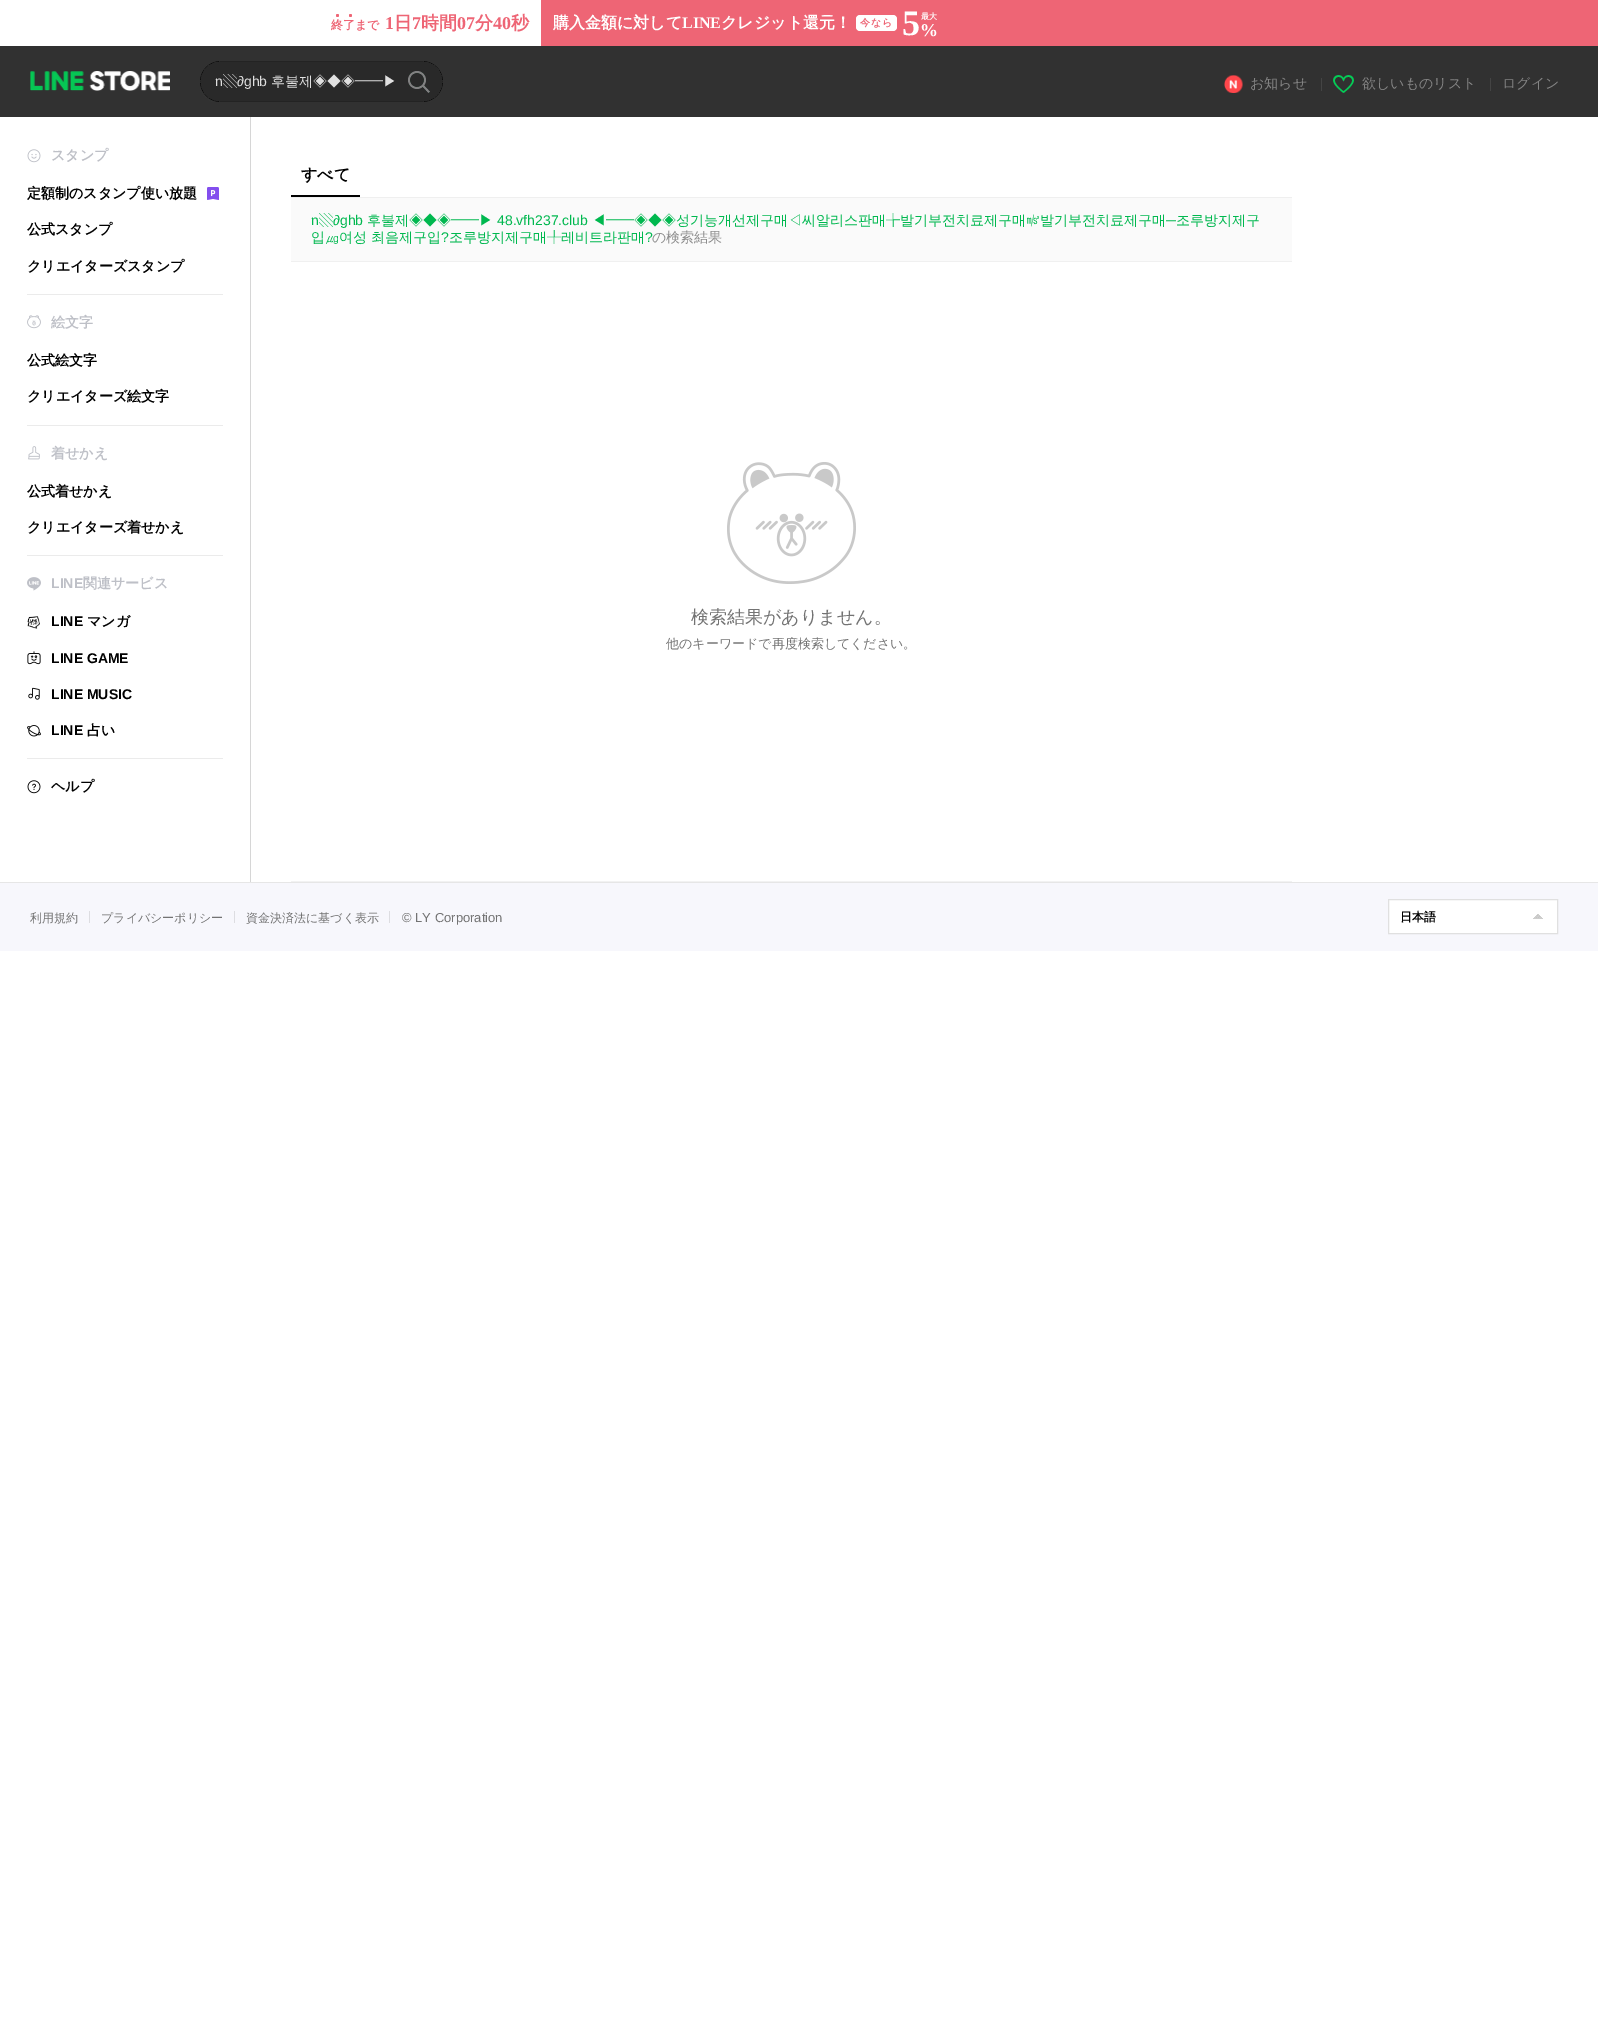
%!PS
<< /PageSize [1598 2042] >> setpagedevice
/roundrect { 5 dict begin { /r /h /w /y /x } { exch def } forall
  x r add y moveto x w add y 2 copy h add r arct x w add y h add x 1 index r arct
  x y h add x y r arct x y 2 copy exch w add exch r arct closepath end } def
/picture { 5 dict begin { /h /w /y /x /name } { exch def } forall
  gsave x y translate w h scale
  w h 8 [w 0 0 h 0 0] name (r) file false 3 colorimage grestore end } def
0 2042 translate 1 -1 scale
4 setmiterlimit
1 setgray
0 0 1598 2042 rectfill
0.933 0.396 0.459 setrgbcolor
newpath 337.5 15.5 1.5 0 360 arc closepath fill
newpath 350.5 15.5 1.5 0 360 arc closepath fill
/WenQuanYiZenHei-Bold [12 0 0 -12 0 0] selectfont
331 29 moveto (終了まで) show
/LiberationSerif-Bold [18 0 0 -18 0 0] selectfont
385 29 moveto (1) show
/WenQuanYiZenHei-Bold [18 0 0 -18 0 0] selectfont
394 29 moveto (日) show
/LiberationSerif-Bold [18 0 0 -18 0 0] selectfont
412 29 moveto (7) show
/WenQuanYiZenHei-Bold [18 0 0 -18 0 0] selectfont
421 29 moveto (時間) show
/LiberationSerif-Bold [18 0 0 -18 0 0] selectfont
457 29 moveto (07) show
/WenQuanYiZenHei-Bold [18 0 0 -18 0 0] selectfont
475 29 moveto (分) show
/LiberationSerif-Bold [18 0 0 -18 0 0] selectfont
493 29 moveto (40) show
/WenQuanYiZenHei-Bold [18 0 0 -18 0 0] selectfont
511 29 moveto (秒) show
541 0 1057 46 rectfill
/WenQuanYiZenHei-Bold [16 0 0 -16 0 0] selectfont
1 setgray
553 28 moveto (購入金額に対して) show
/LiberationSerif-Bold [16 0 0 -16 0 0] selectfont
682 28 moveto (LINE) show
/WenQuanYiZenHei-Bold [16 0 0 -16 0 0] selectfont
721 28 moveto (クレジット還元！) show
856 15 41 16 4 roundrect fill
/WenQuanYiZenHei-Bold [10 0 0 -10 0 0] selectfont
0.933 0.396 0.459 setrgbcolor
860 26 moveto 1 0 (今なら) ashow
/LiberationSerif-Bold [36 0 0 -36 0 0] selectfont
1 setgray
902 35 moveto (5) show
/WenQuanYiZenHei-Bold [8 0 0 -8 0 0] selectfont
921 19 moveto (最大) show
/LiberationSerif-Bold [18 0 0 -18 0 0] selectfont
920 36 moveto (%) show
0.192 setgray
0 46 1598 71 rectfill
(img1.rgb) 30 71 140 20 picture
(img2.rgb) 200 61 243 41 picture
/LiberationSans-Regular [14 0 0 -14 0 0] selectfont
0.878 setgray
215 86 moveto (n) show
/WenQuanYiZenHei-Medium [14 0 0 -14 0 0] selectfont
223 86 moveto (▧) show
/LiberationSans-Regular [14 0 0 -14 0 0] selectfont
237 86 moveto (∂ghb) show
/WenQuanYiZenHei-Medium [14 0 0 -14 0 0] selectfont
271 86 moveto (후불제◈◆◈━━▶) show
(img3.rgb) 408 71 22 22 picture
(img4.rgb) 1224 75 19 18 picture
0.518 setgray
1250 88 moveto (お知らせ) show
0.267 setgray
1321 78 1 13 rectfill
(img5.rgb) 1333 75 21 18 picture
0.518 setgray
1362 88 moveto (欲しいものリスト) show
0.267 setgray
1490 78 1 13 rectfill
0.518 setgray
1502 88 moveto (ログイン) show
(img6.rgb) 27 149 14 14 picture
/WenQuanYiZenHei-Bold [14 0 0 -14 0 0] selectfont
0.745 0.753 0.78 setrgbcolor
51 160 moveto (スタンプ) show
0 setgray
27 198 moveto (定額制のスタンプ使い放題) show
(img7.rgb) 207 187 12 13 picture
27 234 moveto (公式スタンプ) show
27 271 moveto (クリエイターズスタンプ) show
0.922 setgray
27 294 196 1 rectfill
(img8.rgb) 27 315 14 14 picture
0.745 0.753 0.78 setrgbcolor
51 327 moveto (絵文字) show
0 setgray
27 365 moveto (公式絵文字) show
27 401 moveto (クリエイターズ絵文字) show
0.922 setgray
27 425 196 1 rectfill
(img9.rgb) 28 446 12 14 picture
0.745 0.753 0.78 setrgbcolor
51 458 moveto (着せかえ) show
0 setgray
27 496 moveto (公式着せかえ) show
27 532 moveto (クリエイターズ着せかえ) show
0.922 setgray
27 555 196 1 rectfill
(img10.rgb) 27 577 14 14 picture
/LiberationSans-Bold [14 0 0 -14 0 0] selectfont
0.745 0.753 0.78 setrgbcolor
51 588 moveto (LINE) show
/WenQuanYiZenHei-Bold [14 0 0 -14 0 0] selectfont
83 588 moveto (関連サービス) show
(img11.rgb) 27 616 13 13 picture
/LiberationSans-Bold [14 0 0 -14 0 0] selectfont
0 setgray
51 626 moveto (LINE) show
/WenQuanYiZenHei-Bold [14 0 0 -14 0 0] selectfont
87 626 moveto (マンガ) show
(img12.rgb) 27 651 14 14 picture
/LiberationSans-Bold [14 0 0 -14 0 0] selectfont
51 663 moveto (LINE GAME) show
(img13.rgb) 28 687 12 13 picture
51 699 moveto (LINE MUSIC) show
(img14.rgb) 27 725 14 12 picture
51 735 moveto (LINE) show
/WenQuanYiZenHei-Bold [14 0 0 -14 0 0] selectfont
87 735 moveto (占い) show
0.922 setgray
27 758 196 1 rectfill
(img15.rgb) 27 780 14 14 picture
0 setgray
51 791 moveto (ヘルプ) show
0.839 setgray
250 117 1 765 rectfill
0.937 setgray
291 197 1001 1 rectfill
0 setgray
291 195 69 2 rectfill
/WenQuanYiZenHei-Bold [16 0 0 -16 0 0] selectfont
301 180 moveto (すべて) show
0.98 setgray
291 198 1001 63 rectfill
0.941 setgray
291 261 1001 1 rectfill
/LiberationSans-Regular [14 0 0 -14 0 0] selectfont
0 0.722 0.31 setrgbcolor
311 225 moveto (n) show
/WenQuanYiZenHei-Medium [14 0 0 -14 0 0] selectfont
319 225 moveto (▧) show
/LiberationSans-Regular [14 0 0 -14 0 0] selectfont
333 225 moveto (∂ghb) show
/WenQuanYiZenHei-Medium [14 0 0 -14 0 0] selectfont
367 225 moveto (후불제◈◆◈━━▶) show
/LiberationSans-Regular [14 0 0 -14 0 0] selectfont
497 225 moveto (48.vfh237.club) show
/WenQuanYiZenHei-Medium [14 0 0 -14 0 0] selectfont
592 225 moveto (◀━━◈◆◈성기능개선제구매◁씨알리스판매╆발기부전치료제구매㎨발기부전치료제구매) show
/LiberationSans-Regular [14 0 0 -14 0 0] selectfont
1166 225 moveto (─) show
/WenQuanYiZenHei-Medium [14 0 0 -14 0 0] selectfont
1176 225 moveto (조루방지제구) show
311 242 moveto (입㎍여성 최음제구입) show
/LiberationSans-Regular [14 0 0 -14 0 0] selectfont
441 242 moveto (?) show
/WenQuanYiZenHei-Medium [14 0 0 -14 0 0] selectfont
449 242 moveto (조루방지제구매╀레비트라판매) show
/LiberationSans-Regular [14 0 0 -14 0 0] selectfont
645 242 moveto (?) show
/WenQuanYiZenHei-Medium [14 0 0 -14 0 0] selectfont
0.549 setgray
652 242 moveto (の検索結果) show
(img16.rgb) 727 462 129 122 picture
0.949 setgray
291 881 1001 1 rectfill
/WenQuanYiZenHei-Medium [18 0 0 -18 0 0] selectfont
0.451 setgray
691 623 moveto (検索結果がありません。) show
/WenQuanYiZenHei-Medium [13 0 0 -13 0 0] selectfont
666 648 moveto (他のキーワードで再度検索してください。) show
0.969 0.969 0.988 setrgbcolor
0 883 1598 68 rectfill
0.902 setgray
0 882 1598 1 rectfill
/WenQuanYiZenHei-Medium [12 0 0 -12 0 0] selectfont
0.451 setgray
30 922 moveto (利用規約) show
0.867 0.867 0.882 setrgbcolor
89 911 1 12 rectfill
0.451 setgray
101 922 moveto (プライバシーポリシー) show
0.867 0.867 0.882 setrgbcolor
234 911 1 12 rectfill
0.451 setgray
246 922 moveto (資金決済法に基づく表示) show
0.867 0.867 0.882 setrgbcolor
389 911 1 12 rectfill
/LiberationSans-Regular [13 0 0 -13 0 0] selectfont
0.451 setgray
402 922 moveto (© LY Corporation) show
1 setgray
newpath 1388.5 899.5 moveto 1557.5 899.5 lineto 1557.5 933.5 lineto 1388.5 933.5 lineto closepath gsave fill grestore
0.878 setgray
stroke
/WenQuanYiZenHei-Bold [12 0 0 -12 0 0] selectfont
0 setgray
1400 921 moveto (日本語) show
(img17.rgb) 1533 914 10 5 picture
showpage
